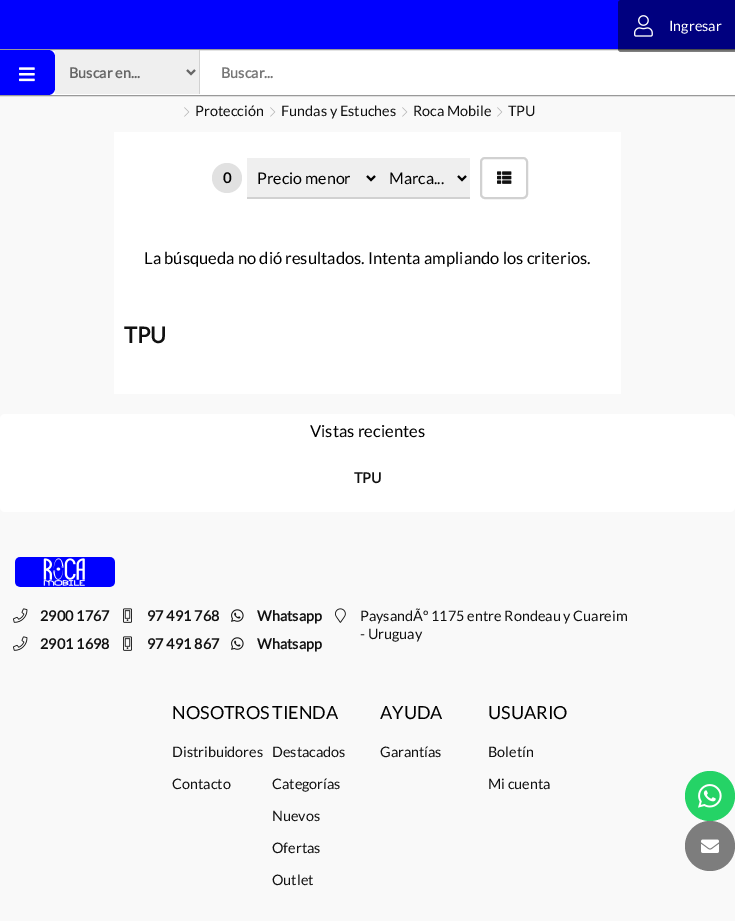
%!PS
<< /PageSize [735 921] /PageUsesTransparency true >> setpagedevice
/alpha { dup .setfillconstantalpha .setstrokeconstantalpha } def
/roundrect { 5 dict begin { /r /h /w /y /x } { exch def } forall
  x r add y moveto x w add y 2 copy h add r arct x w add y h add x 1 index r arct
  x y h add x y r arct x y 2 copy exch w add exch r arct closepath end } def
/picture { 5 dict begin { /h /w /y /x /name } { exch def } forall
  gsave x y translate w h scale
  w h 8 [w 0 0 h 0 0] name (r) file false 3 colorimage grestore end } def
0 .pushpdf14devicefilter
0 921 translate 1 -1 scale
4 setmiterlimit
0.976 setgray
0 0 735 921 rectfill
0 0 1 setrgbcolor
0 0 735 49 rectfill
1 setgray
48 50 687 45 rectfill
0.6 setgray
0.5 49.5 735 46 rectstroke
0.5 alpha
0 setgray
618 0 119 52 3 roundrect fill
1 alpha
(img1.rgb) 634 15 19 22 picture
/Lato-Regular [14.4 0 0 -14.4 0 0] selectfont
1 setgray
669 31 moveto (Ingresar) show
0 0 1 setrgbcolor
newpath 0 50 moveto 48 50 lineto 52 50 55 53 55 57 curveto 55 88 lineto 55 92 52 95 48 95 curveto 0 95 lineto closepath fill
(img2.rgb) 19 67 16 15 picture
0.937 setgray
55 50 144 44 rectfill
0.82 setgray
199 50 1 44 rectfill
0.4 setgray
2 setlinewidth
newpath 187 70 moveto 191 74 lineto 195 70 lineto stroke
/Lato-Bold [14.4 0 0 -14.4 0 0] selectfont
69 78 moveto (Buscar en...) show
0.467 setgray
221 78 moveto (Buscar...) show
(img3.rgb) 184 107 6 10 picture
/Lato-Regular [14.4 0 0 -14.4 0 0] selectfont
0.067 setgray
195 116 moveto (Protección) show
(img3.rgb) 270 107 6 10 picture
281 116 moveto (Fundas y Estuches) show
(img3.rgb) 402 107 6 10 picture
413 116 moveto (Roca Mobile) show
(img3.rgb) 497 107 6 10 picture
508 116 moveto (TPU) show
1 setgray
114 132 507 262 rectfill
0.882 setgray
newpath 227 178 15 0 360 arc closepath fill
/Lato-Bold [14.4 0 0 -14.4 0 0] selectfont
0 setgray
223 183 moveto (0) show
0.937 setgray
247 158 223 39 rectfill
0 setgray
newpath 367 176 moveto 371 180 lineto 375 176 lineto stroke
/Lato-Regular [16 0 0 -16 0 0] selectfont
257 184 moveto (Precio menor) show
0.82 setgray
247 197 223 2 rectfill
0 setgray
newpath 458 176 moveto 462 180 lineto 466 176 lineto stroke
389 184 moveto (Marca...) show
0.82 setgray
481 158 46 40 4 roundrect stroke
(img4.rgb) 497 171 15 13 picture
/Lato-Regular [16.55 0 0 -16.55 0 0] selectfont
0 setgray
144 264 moveto (La búsqueda no dió resultados. Intenta ampliando los criterios.) show
/Lato-Bold [22 0 0 -22 0 0] selectfont
0.067 setgray
124 343 moveto (TPU) show
1 setgray
0 414 735 98 5 roundrect fill
/Lato-Regular [16.55 0 0 -16.55 0 0] selectfont
0 setgray
310 437 moveto (Vistas recientes) show
/Lato-Bold [14.4 0 0 -14.4 0 0] selectfont
0.067 setgray
354 483 moveto (TPU) show
(img5.rgb) 15 557 100 30 picture
(img6.rgb) 13 608 15 15 picture
40 621 moveto (2900 1767) show
(img6.rgb) 13 636 15 15 picture
40 649 moveto (2901 1698) show
(img7.rgb) 123 608 9 15 picture
147 621 moveto (97 491 768) show
(img8.rgb) 231 609 13 13 picture
257 621 moveto (Whatsapp) show
(img7.rgb) 123 636 9 15 picture
147 649 moveto (97 491 867) show
(img8.rgb) 231 637 13 13 picture
257 649 moveto (Whatsapp) show
(img9.rgb) 335 608 11 15 picture
/Lato-Regular [14.4 0 0 -14.4 0 0] selectfont
360 621 moveto (PaysandÃº 1175 entre Rondeau y Cuareim) show
360 639 moveto (- Uruguay) show
/Lato-Regular [18 0 0 -18 0 0] selectfont
0 setgray
172 719 moveto (NOSOTROS) show
/Lato-Regular [14.4 0 0 -14.4 0 0] selectfont
0.067 setgray
172 757 moveto (Distribuidores) show
172 789 moveto (Contacto) show
/Lato-Regular [18 0 0 -18 0 0] selectfont
0 setgray
272 719 moveto (TIENDA) show
/Lato-Regular [14.4 0 0 -14.4 0 0] selectfont
0.067 setgray
272 757 moveto (Destacados) show
272 789 moveto (Categorías) show
272 821 moveto (Nuevos) show
272 853 moveto (Ofertas) show
272 885 moveto (Outlet) show
/Lato-Regular [18 0 0 -18 0 0] selectfont
0 setgray
380 719 moveto (AYUDA) show
/Lato-Regular [14.4 0 0 -14.4 0 0] selectfont
0.067 setgray
380 757 moveto (Garantías) show
/Lato-Regular [18 0 0 -18 0 0] selectfont
0 setgray
488 719 moveto (USUARIO) show
/Lato-Regular [14.4 0 0 -14.4 0 0] selectfont
0.067 setgray
488 757 moveto (Boletín) show
488 789 moveto (Mi cuenta) show
0.145 0.827 0.4 setrgbcolor
newpath 710 796 25 0 360 arc closepath fill
(img10.rgb) 698 784 24 24 picture
0.49 setgray
newpath 710 846 25 0 360 arc closepath fill
(img11.rgb) 701 839 18 14 picture
.poppdf14devicefilter showpage
